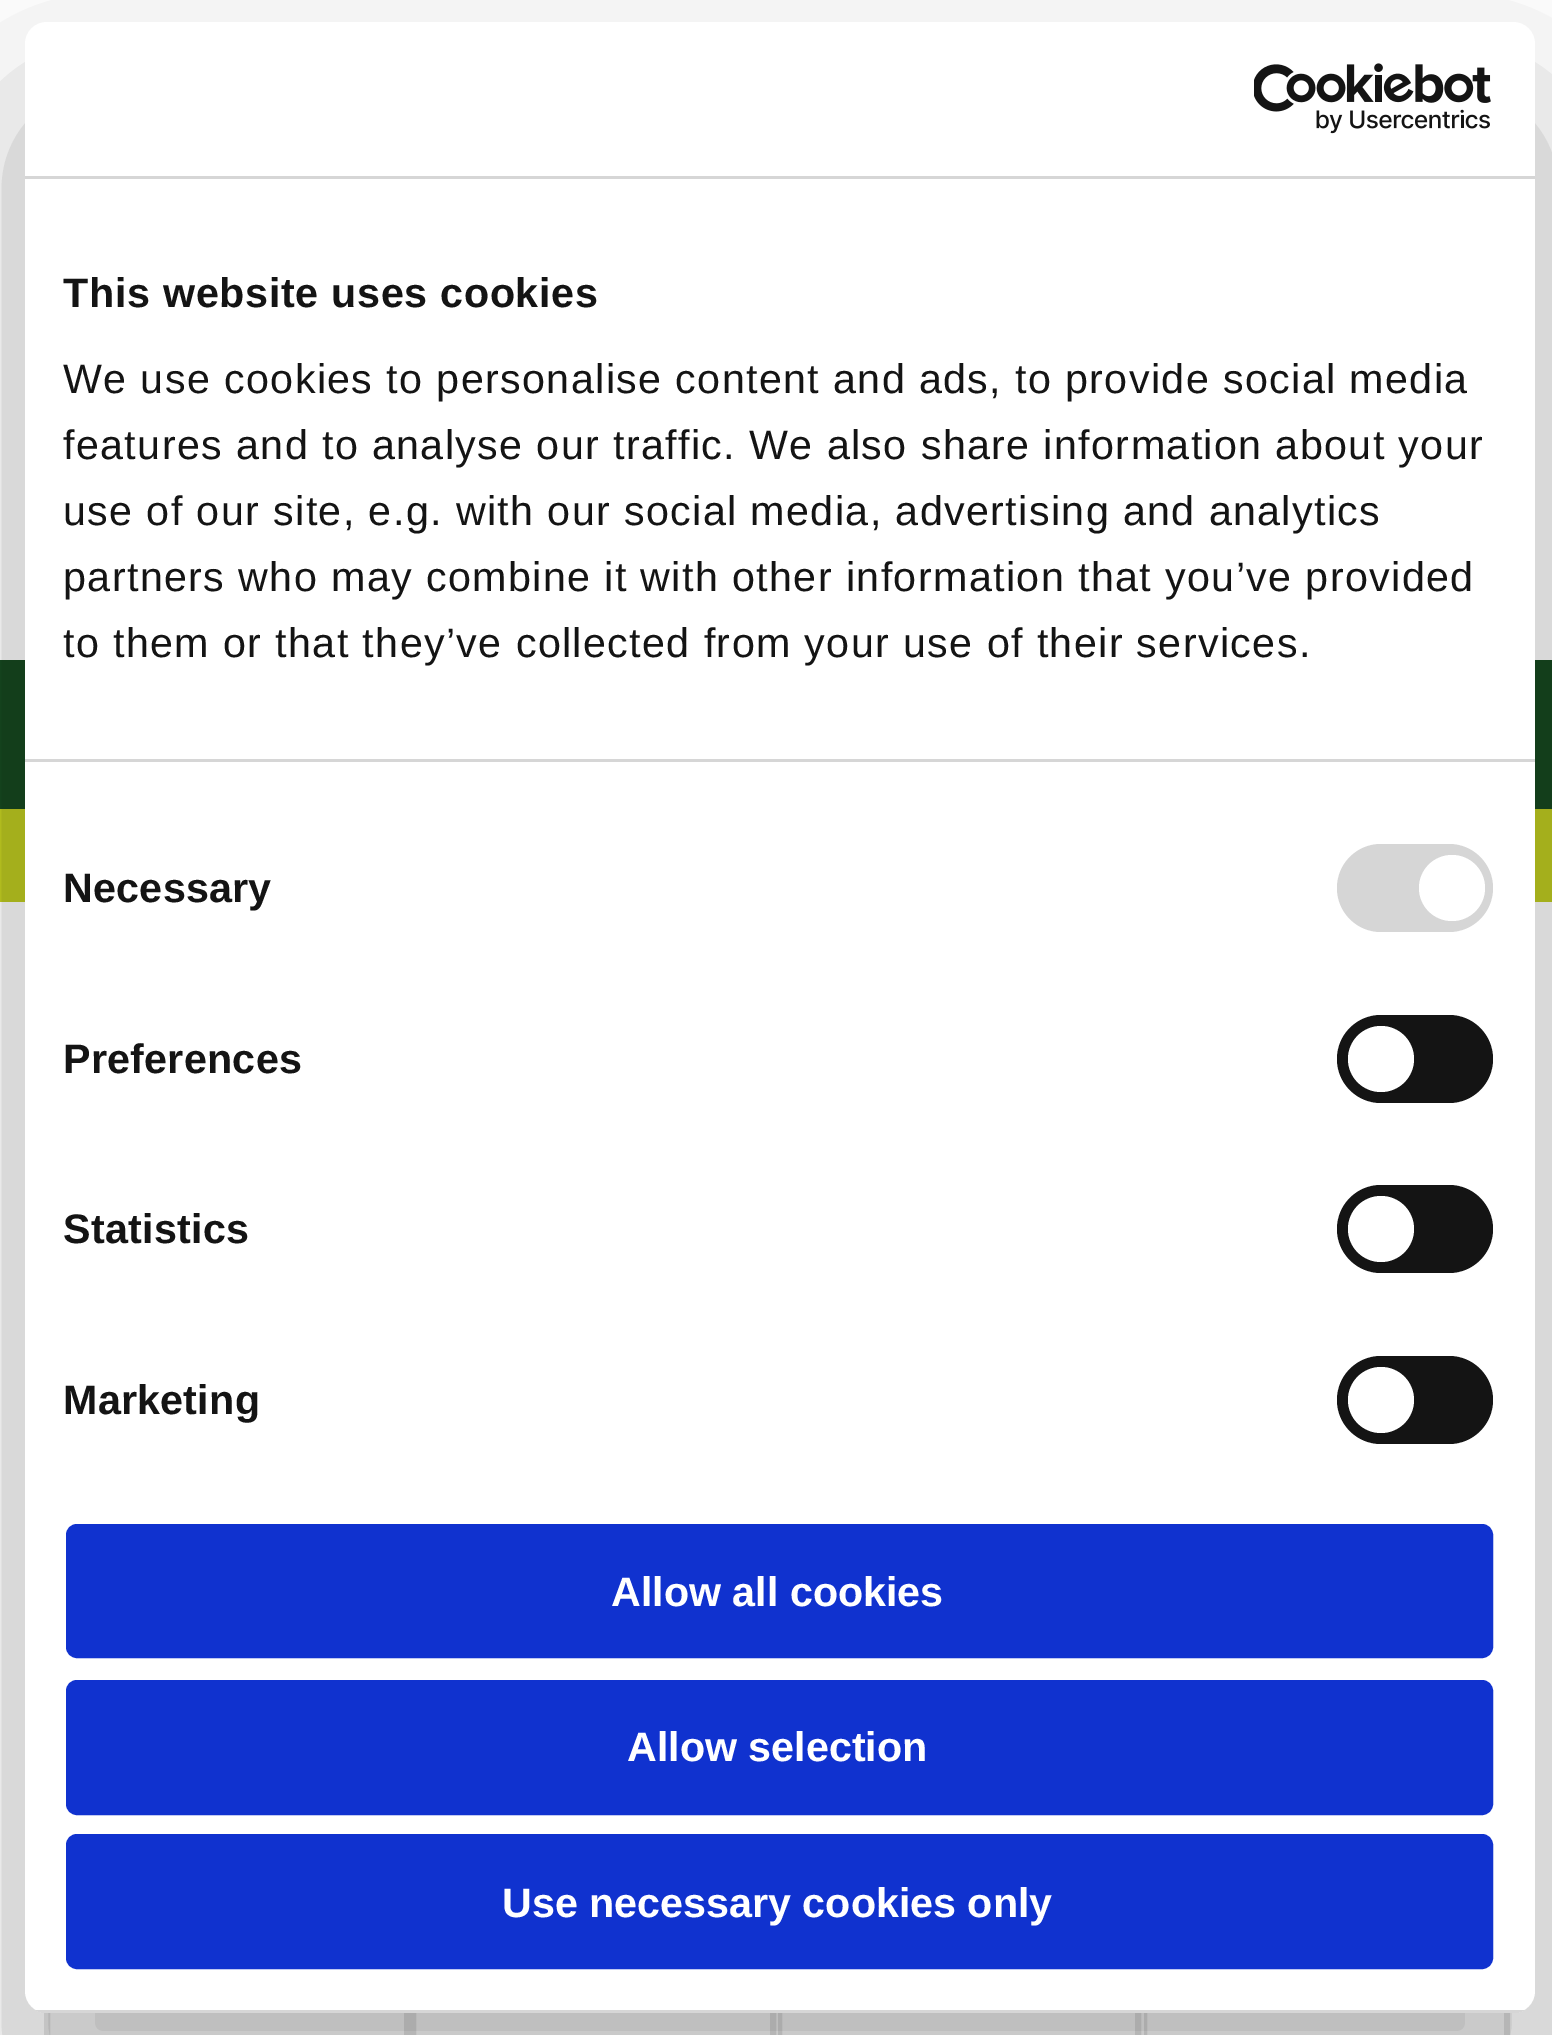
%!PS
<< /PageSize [1552 2035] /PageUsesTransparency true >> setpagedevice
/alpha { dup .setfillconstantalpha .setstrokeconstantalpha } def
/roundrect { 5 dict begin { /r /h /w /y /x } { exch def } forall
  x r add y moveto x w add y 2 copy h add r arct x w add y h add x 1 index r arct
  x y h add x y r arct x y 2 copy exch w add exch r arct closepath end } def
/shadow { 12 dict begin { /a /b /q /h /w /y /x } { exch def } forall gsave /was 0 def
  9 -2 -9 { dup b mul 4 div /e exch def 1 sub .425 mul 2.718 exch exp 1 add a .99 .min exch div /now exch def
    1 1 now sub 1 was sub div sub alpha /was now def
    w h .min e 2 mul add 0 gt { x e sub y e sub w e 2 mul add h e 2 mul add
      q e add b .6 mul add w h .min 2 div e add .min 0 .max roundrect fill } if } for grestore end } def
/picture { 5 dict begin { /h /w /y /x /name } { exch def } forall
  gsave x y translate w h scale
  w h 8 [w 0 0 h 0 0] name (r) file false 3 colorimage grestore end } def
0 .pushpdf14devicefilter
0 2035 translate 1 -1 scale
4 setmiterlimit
1 setgray
0 0 1552 2035 rectfill
0.082 0.286 0.122 setrgbcolor
0 660 1552 149 rectfill
0.757 0.804 0.129 setrgbcolor
0 809 1552 93 rectfill
0.902 setgray
6 setlinewidth
47 1862 360 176 rectstroke
413 1862 360 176 rectstroke
gsave
778 1862 366 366 rectclip
779 1862 359 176 rectstroke
grestore
gsave
1144 1862 366 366 rectclip
1144 1862 363 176 rectstroke
grestore
gsave
newpath 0 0 moveto 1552 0 lineto 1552 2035 lineto 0 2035 lineto closepath 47 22 moveto 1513 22 lineto 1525 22 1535 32 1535 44 curveto 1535 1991 lineto 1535 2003 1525 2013 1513 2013 curveto 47 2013 lineto 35 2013 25 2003 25 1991 curveto 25 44 lineto 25 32 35 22 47 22 curveto closepath eoclip newpath
0 setgray
25 110 1510 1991 22 93.5 0.3 shadow
grestore
1 setgray
25 22 1510 1991 22 roundrect fill
0.839 setgray
25 176 1510 3 rectfill
(img1.rgb) 1254 63 237 71 picture
25 759 1510 3 rectfill
/LiberationSans-Bold [41.25 0 0 -41.25 0 0] selectfont
0.078 setgray
63 307 moveto 0.7 0 (This website uses cookies) ashow
/LiberationSans-Regular [41.25 0 0 -41.25 0 0] selectfont
63 393 moveto 1.38 0 (We use cookies to personalise content and ads, to provide social media) ashow
63 459 moveto 1.38 0 (features and to analyse our traffic. We also share information about your) ashow
63 525 moveto 1.38 0 (use of our site, e.g. with our social media, advertising and analytics) ashow
63 591 moveto 1.38 0 (partners who may combine it with other information that you’ve provided) ashow
63 657 moveto 1.38 0 (to them or that they’ve collected from your use of their services.) ashow
/LiberationSans-Bold [41.25 0 0 -41.25 0 0] selectfont
63 902 moveto 0.25 0 (Necessary) ashow
0.839 setgray
1337 844 156 88 44 roundrect fill
1 setgray
newpath 1452 888 33 0 360 arc closepath fill
0.078 setgray
63 1073 moveto 0.25 0 (Preferences) ashow
1337 1015 156 88 44 roundrect fill
1 setgray
newpath 1381 1059 33 0 360 arc closepath fill
0.078 setgray
63 1243 moveto 0.25 0 (Statistics) ashow
1337 1185 156 88 44 roundrect fill
1 setgray
newpath 1381 1229 33 0 360 arc closepath fill
0.078 setgray
63 1414 moveto 0.25 0 (Marketing) ashow
1337 1356 156 88 44 roundrect fill
1 setgray
newpath 1381 1400 33 0 360 arc closepath fill
gsave
25 22 1510 1991 22 roundrect clip newpath
0.839 setgray
36 2010 1488 3 rectfill
grestore
0.063 0.196 0.812 setrgbcolor
69 1527 1421 128 8 roundrect gsave fill grestore
stroke
1 setgray
611 1606 moveto (Allow all cookies) show
0.063 0.196 0.812 setrgbcolor
69 1683 1421 129 8 roundrect gsave fill grestore
stroke
1 setgray
627 1761 moveto (Allow selection) show
0.063 0.196 0.812 setrgbcolor
69 1837 1421 129 8 roundrect gsave fill grestore
stroke
1 setgray
502 1917 moveto (Use necessary cookies only) show
.poppdf14devicefilter showpage
